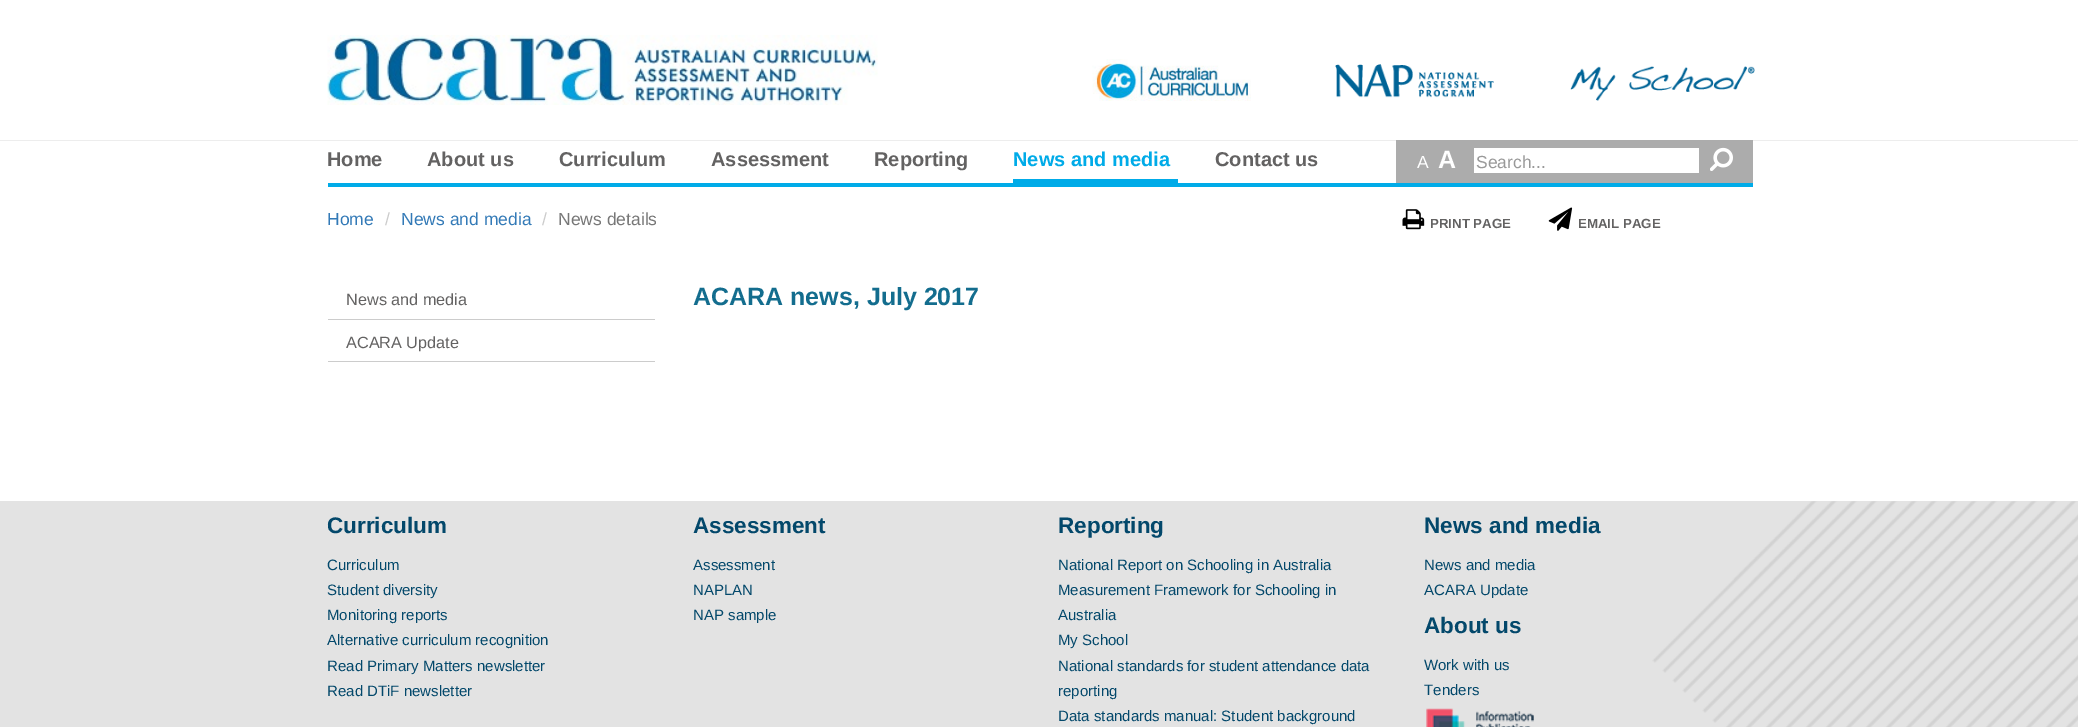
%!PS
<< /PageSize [2078 727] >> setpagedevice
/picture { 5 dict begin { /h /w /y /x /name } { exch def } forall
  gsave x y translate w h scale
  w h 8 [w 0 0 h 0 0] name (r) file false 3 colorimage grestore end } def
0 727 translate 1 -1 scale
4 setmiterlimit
1 setgray
0 0 2078 727 rectfill
(img1.rgb) 327 35 551 70 picture
(img2.rgb) 1092 59 159 42 picture
(img3.rgb) 1335 64 159 34 picture
(img4.rgb) 1570 66 185 35 picture
0.929 setgray
0 140 2078 1 rectfill
0 0.671 0.91 setrgbcolor
328 183 1425 4 rectfill
/LiberationSans-Bold [20 0 0 -20 0 0] selectfont
0.388 0.384 0.384 setrgbcolor
327 166 moveto (Home) show
427 166 moveto (About us) show
559 166 moveto (Curriculum) show
711 166 moveto (Assessment) show
874 166 moveto (Reporting) show
0 0.671 0.91 setrgbcolor
1013 179 165 4 rectfill
1013 166 moveto (News and media) show
0.388 0.384 0.384 setrgbcolor
1215 166 moveto (Contact us) show
0.675 setgray
1396 140 357 43 rectfill
/LiberationSans-Regular [17.5 0 0 -17.5 0 0] selectfont
1 setgray
1417 168 moveto (A) show
/LiberationSans-Bold [25 0 0 -25 0 0] selectfont
1438 168 moveto (A) show
1474 148 225 25 rectfill
/LiberationSans-Regular [17.5 0 0 -17.5 0 0] selectfont
0.6 setgray
1476 168 moveto (Search...) show
(img5.rgb) 1710 147 23 24 picture
0.2 0.478 0.718 setrgbcolor
327 225 moveto (Home) show
0.8 setgray
385 225 moveto (/) show
0.2 0.478 0.718 setrgbcolor
401 225 moveto (News and media) show
0.8 setgray
542 225 moveto (/) show
0.467 setgray
558 225 moveto (News details) show
(img6.rgb) 1402 209 23 21 picture
/LiberationSans-Bold [13.25 0 0 -13.25 0 0] selectfont
0.388 0.384 0.384 setrgbcolor
1430 228 moveto (PRINT PAGE) show
(img7.rgb) 1548 207 25 24 picture
1578 228 moveto (EMAIL PAGE) show
0.8 setgray
328 319 327 1 rectfill
/LiberationSans-Regular [16.25 0 0 -16.25 0 0] selectfont
0.388 0.384 0.384 setrgbcolor
346 305 moveto (News and media) show
0.8 setgray
328 361 327 1 rectfill
0.388 0.384 0.384 setrgbcolor
346 348 moveto (ACARA Update) show
/LiberationSans-Bold [25 0 0 -25 0 0] selectfont
0.075 0.427 0.557 setrgbcolor
693 305 moveto (ACARA news, July 2017) show
0.89 setgray
0 501 2078 226 rectfill
(img8.rgb) 1652 501 426 226 picture
/LiberationSans-Bold [22.5 0 0 -22.5 0 0] selectfont
0.012 0.282 0.42 setrgbcolor
327 533 moveto (Curriculum) show
/LiberationSans-Regular [15 0 0 -15 0 0] selectfont
327 570 moveto (Curriculum) show
327 595 moveto (Student diversity) show
327 620 moveto (Monitoring reports) show
327 645 moveto (Alternative curriculum recognition) show
327 671 moveto (Read Primary Matters newsletter) show
327 696 moveto (Read DTiF newsletter) show
/LiberationSans-Bold [22.5 0 0 -22.5 0 0] selectfont
693 533 moveto (Assessment) show
/LiberationSans-Regular [15 0 0 -15 0 0] selectfont
693 570 moveto (Assessment) show
693 595 moveto (NAPLAN) show
693 620 moveto (NAP sample) show
/LiberationSans-Bold [22.5 0 0 -22.5 0 0] selectfont
1058 533 moveto (Reporting) show
/LiberationSans-Regular [15 0 0 -15 0 0] selectfont
1058 570 moveto (National Report on Schooling in Australia) show
1058 595 moveto (Measurement Framework for Schooling in) show
1058 620 moveto (Australia) show
1058 645 moveto (My School) show
1058 671 moveto (National standards for student attendance data) show
1058 696 moveto (reporting) show
1058 721 moveto (Data standards manual: Student background) show
/LiberationSans-Bold [22.5 0 0 -22.5 0 0] selectfont
1424 533 moveto (News and media) show
/LiberationSans-Regular [15 0 0 -15 0 0] selectfont
1424 570 moveto (News and media) show
1424 595 moveto (ACARA Update) show
/LiberationSans-Bold [22.5 0 0 -22.5 0 0] selectfont
1424 633 moveto (About us) show
/LiberationSans-Regular [15 0 0 -15 0 0] selectfont
1424 670 moveto (Work with us) show
1424 695 moveto (Tenders) show
(img9.rgb) 1426 708 108 19 picture
showpage
